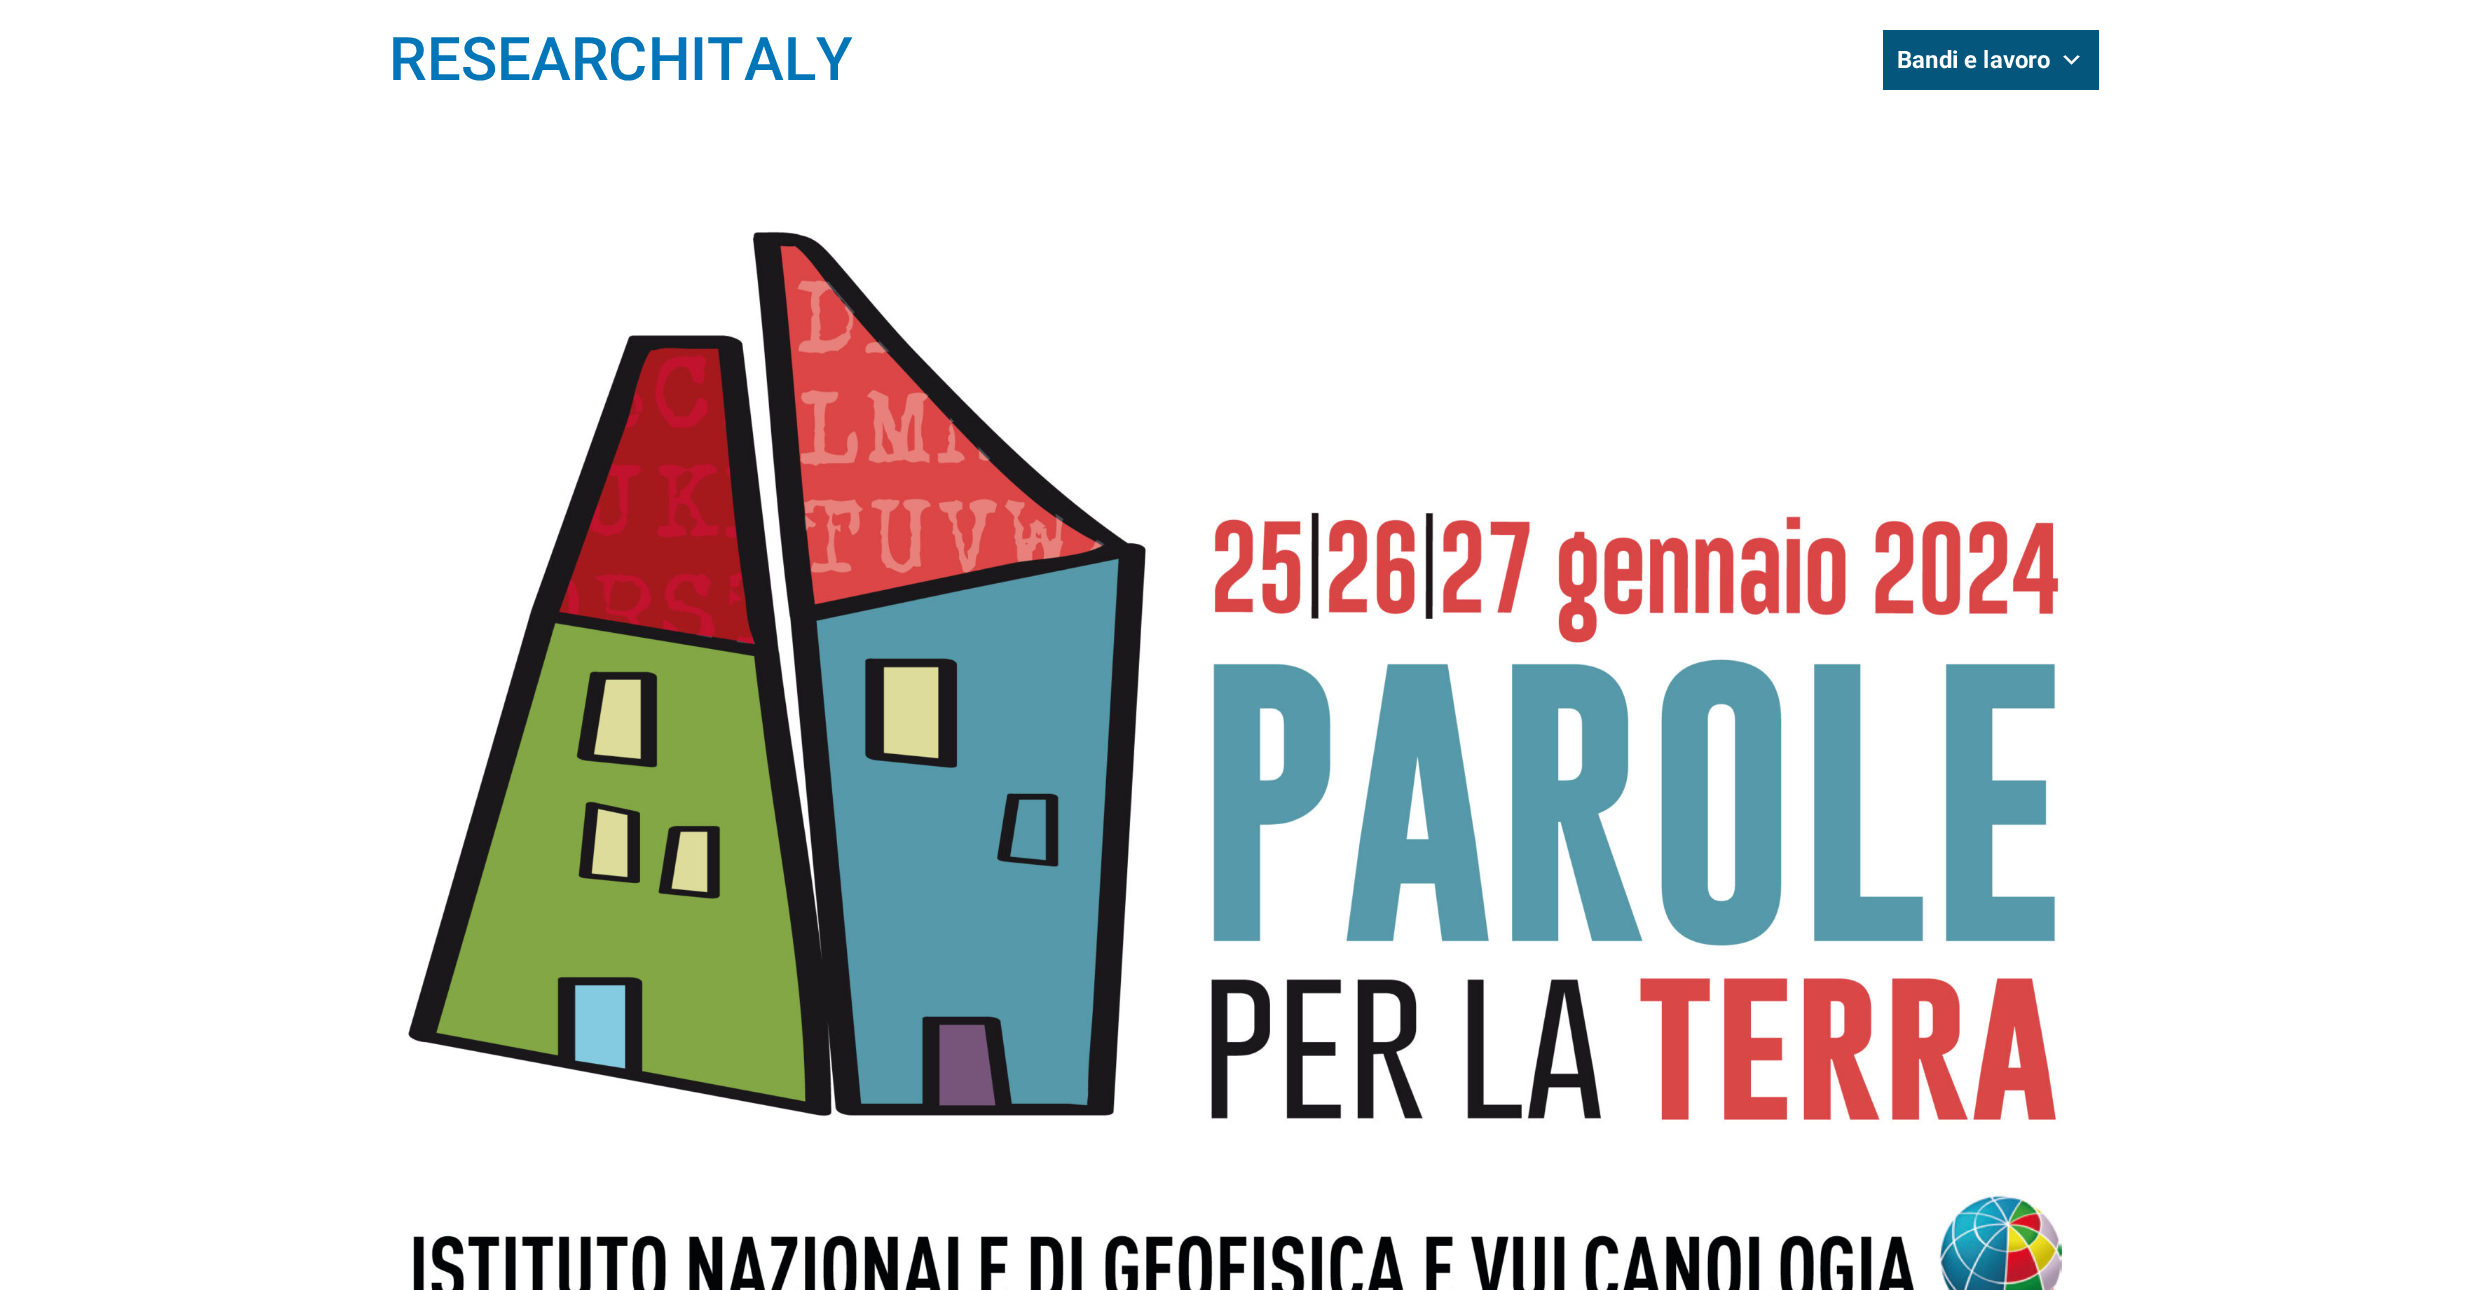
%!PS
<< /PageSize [2486 1290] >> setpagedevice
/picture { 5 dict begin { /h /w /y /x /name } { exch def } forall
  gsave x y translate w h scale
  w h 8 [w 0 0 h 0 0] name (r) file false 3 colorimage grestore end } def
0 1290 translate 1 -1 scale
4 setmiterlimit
1 setgray
0 0 2486 1290 rectfill
/Roboto-Medium [60 0 0 -60 0 0] selectfont
0 0.463 0.722 setrgbcolor
389 80 moveto (RESEARCHITALY) show
0.02 0.337 0.486 setrgbcolor
1883 30 216 60 rectfill
/Roboto-Bold [24 0 0 -24 0 0] selectfont
1 setgray
1897 68 moveto (Bandi e lavoro) show
(img1.rgb) 2063 55 17 10 picture
(img2.rgb) 408 231 1654 1059 picture
showpage
